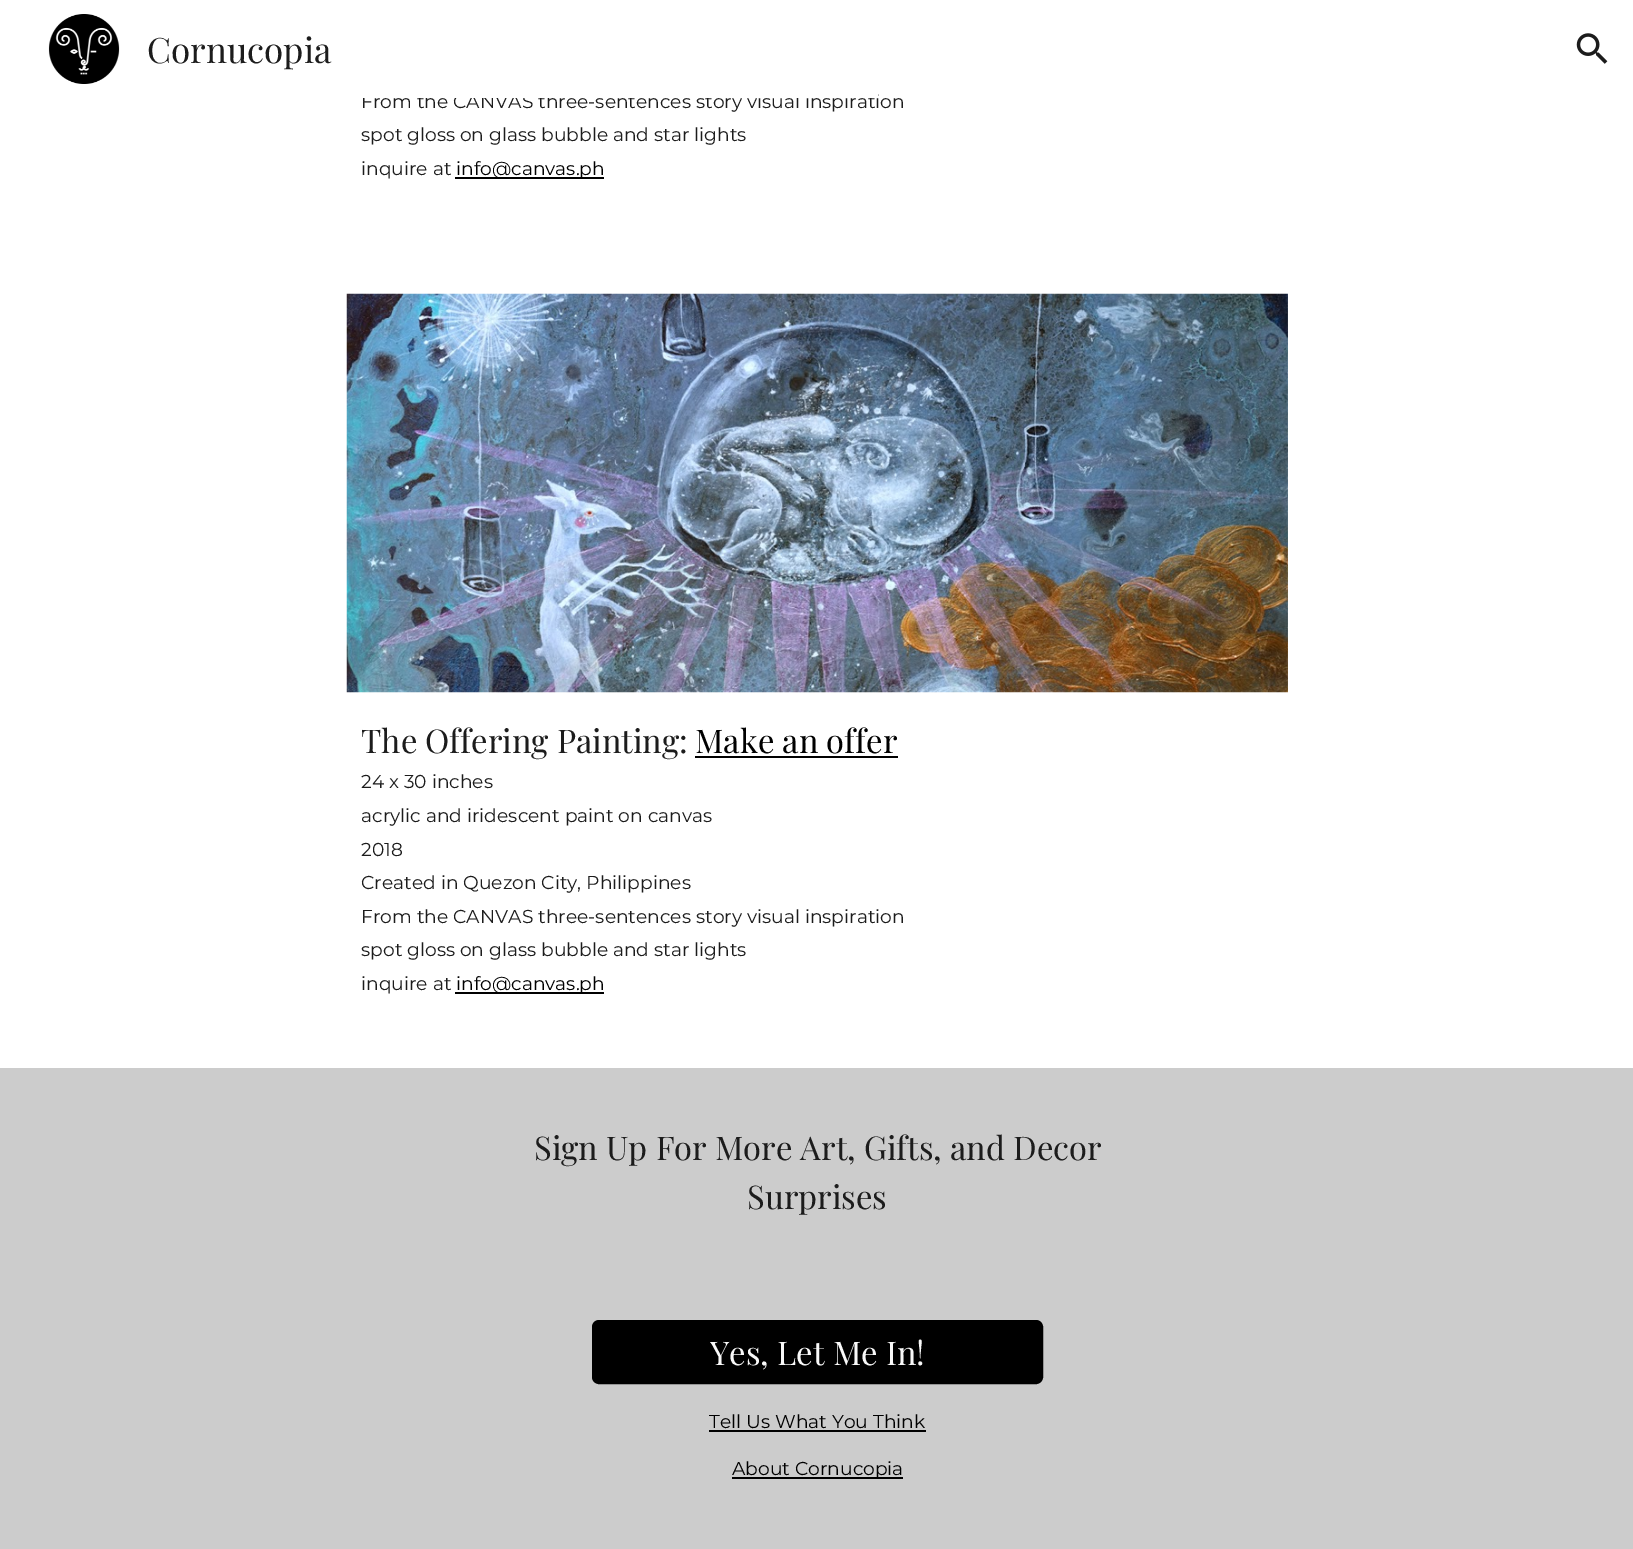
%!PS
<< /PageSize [1633 1549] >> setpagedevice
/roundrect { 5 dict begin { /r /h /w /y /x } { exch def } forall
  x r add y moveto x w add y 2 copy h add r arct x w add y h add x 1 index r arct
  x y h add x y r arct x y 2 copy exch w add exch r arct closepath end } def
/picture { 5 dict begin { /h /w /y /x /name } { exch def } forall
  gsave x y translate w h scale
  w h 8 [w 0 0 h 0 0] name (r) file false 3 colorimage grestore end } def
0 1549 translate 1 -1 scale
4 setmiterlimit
1 setgray
0 0 1633 1549 rectfill
(img1.rgb) 48 14 72 70 picture
/PlayfairDisplay-Regular [35 0 0 -35 0 0] selectfont
0.11 setgray
147 63 moveto (Cornucopia) show
(img2.rgb) 1576 33 32 31 picture
/Montserrat-Regular [18.7 0 0 -18.7 0 0] selectfont
361 108 moveto (From the CANVAS three-sentences story visual inspiration) show
1 setgray
362 94 516 4 rectfill
0.11 setgray
361 141 moveto (spot gloss on glass bubble and star lights) show
361 175 moveto (inquire at) show
0 setgray
455 177 149 2 rectfill
456 175 moveto (info@canvas.ph) show
(img3.rgb) 346 293 942 400 picture
/PlayfairDisplay-Regular [32.7 0 0 -32.7 0 0] selectfont
0.11 setgray
361 753 moveto (The Offering Painting:) show
0 setgray
695 753 moveto (Make an offer) show
695 756 203 2 rectfill
/Montserrat-Regular [18.7 0 0 -18.7 0 0] selectfont
0.11 setgray
361 788 moveto (24 x 30 inches) show
361 822 moveto (acrylic and iridescent paint on canvas) show
361 856 moveto (2018) show
361 889 moveto (Created in Quezon City, Philippines) show
361 923 moveto (From the CANVAS three-sentences story visual inspiration) show
361 956 moveto (spot gloss on glass bubble and star lights) show
361 990 moveto (inquire at) show
0 setgray
455 992 149 2 rectfill
456 990 moveto (info@canvas.ph) show
0.8 setgray
0 1068 1633 481 rectfill
/PlayfairDisplay-Regular [32.7 0 0 -32.7 0 0] selectfont
0.11 setgray
534 1160 moveto (Sign Up For More Art, Gifts, and Decor) show
747 1209 moveto (Surprises) show
0 setgray
593 1321 449 62 6 roundrect gsave fill grestore
2 setlinewidth
stroke
0.976 setgray
710 1365 moveto (Yes, Let Me In!) show
/Montserrat-Regular [18.7 0 0 -18.7 0 0] selectfont
0 setgray
709 1428 moveto (Tell Us What You Think) show
709 1430 217 2 rectfill
732 1477 171 2 rectfill
732 1475 moveto (About Cornucopia) show
showpage
